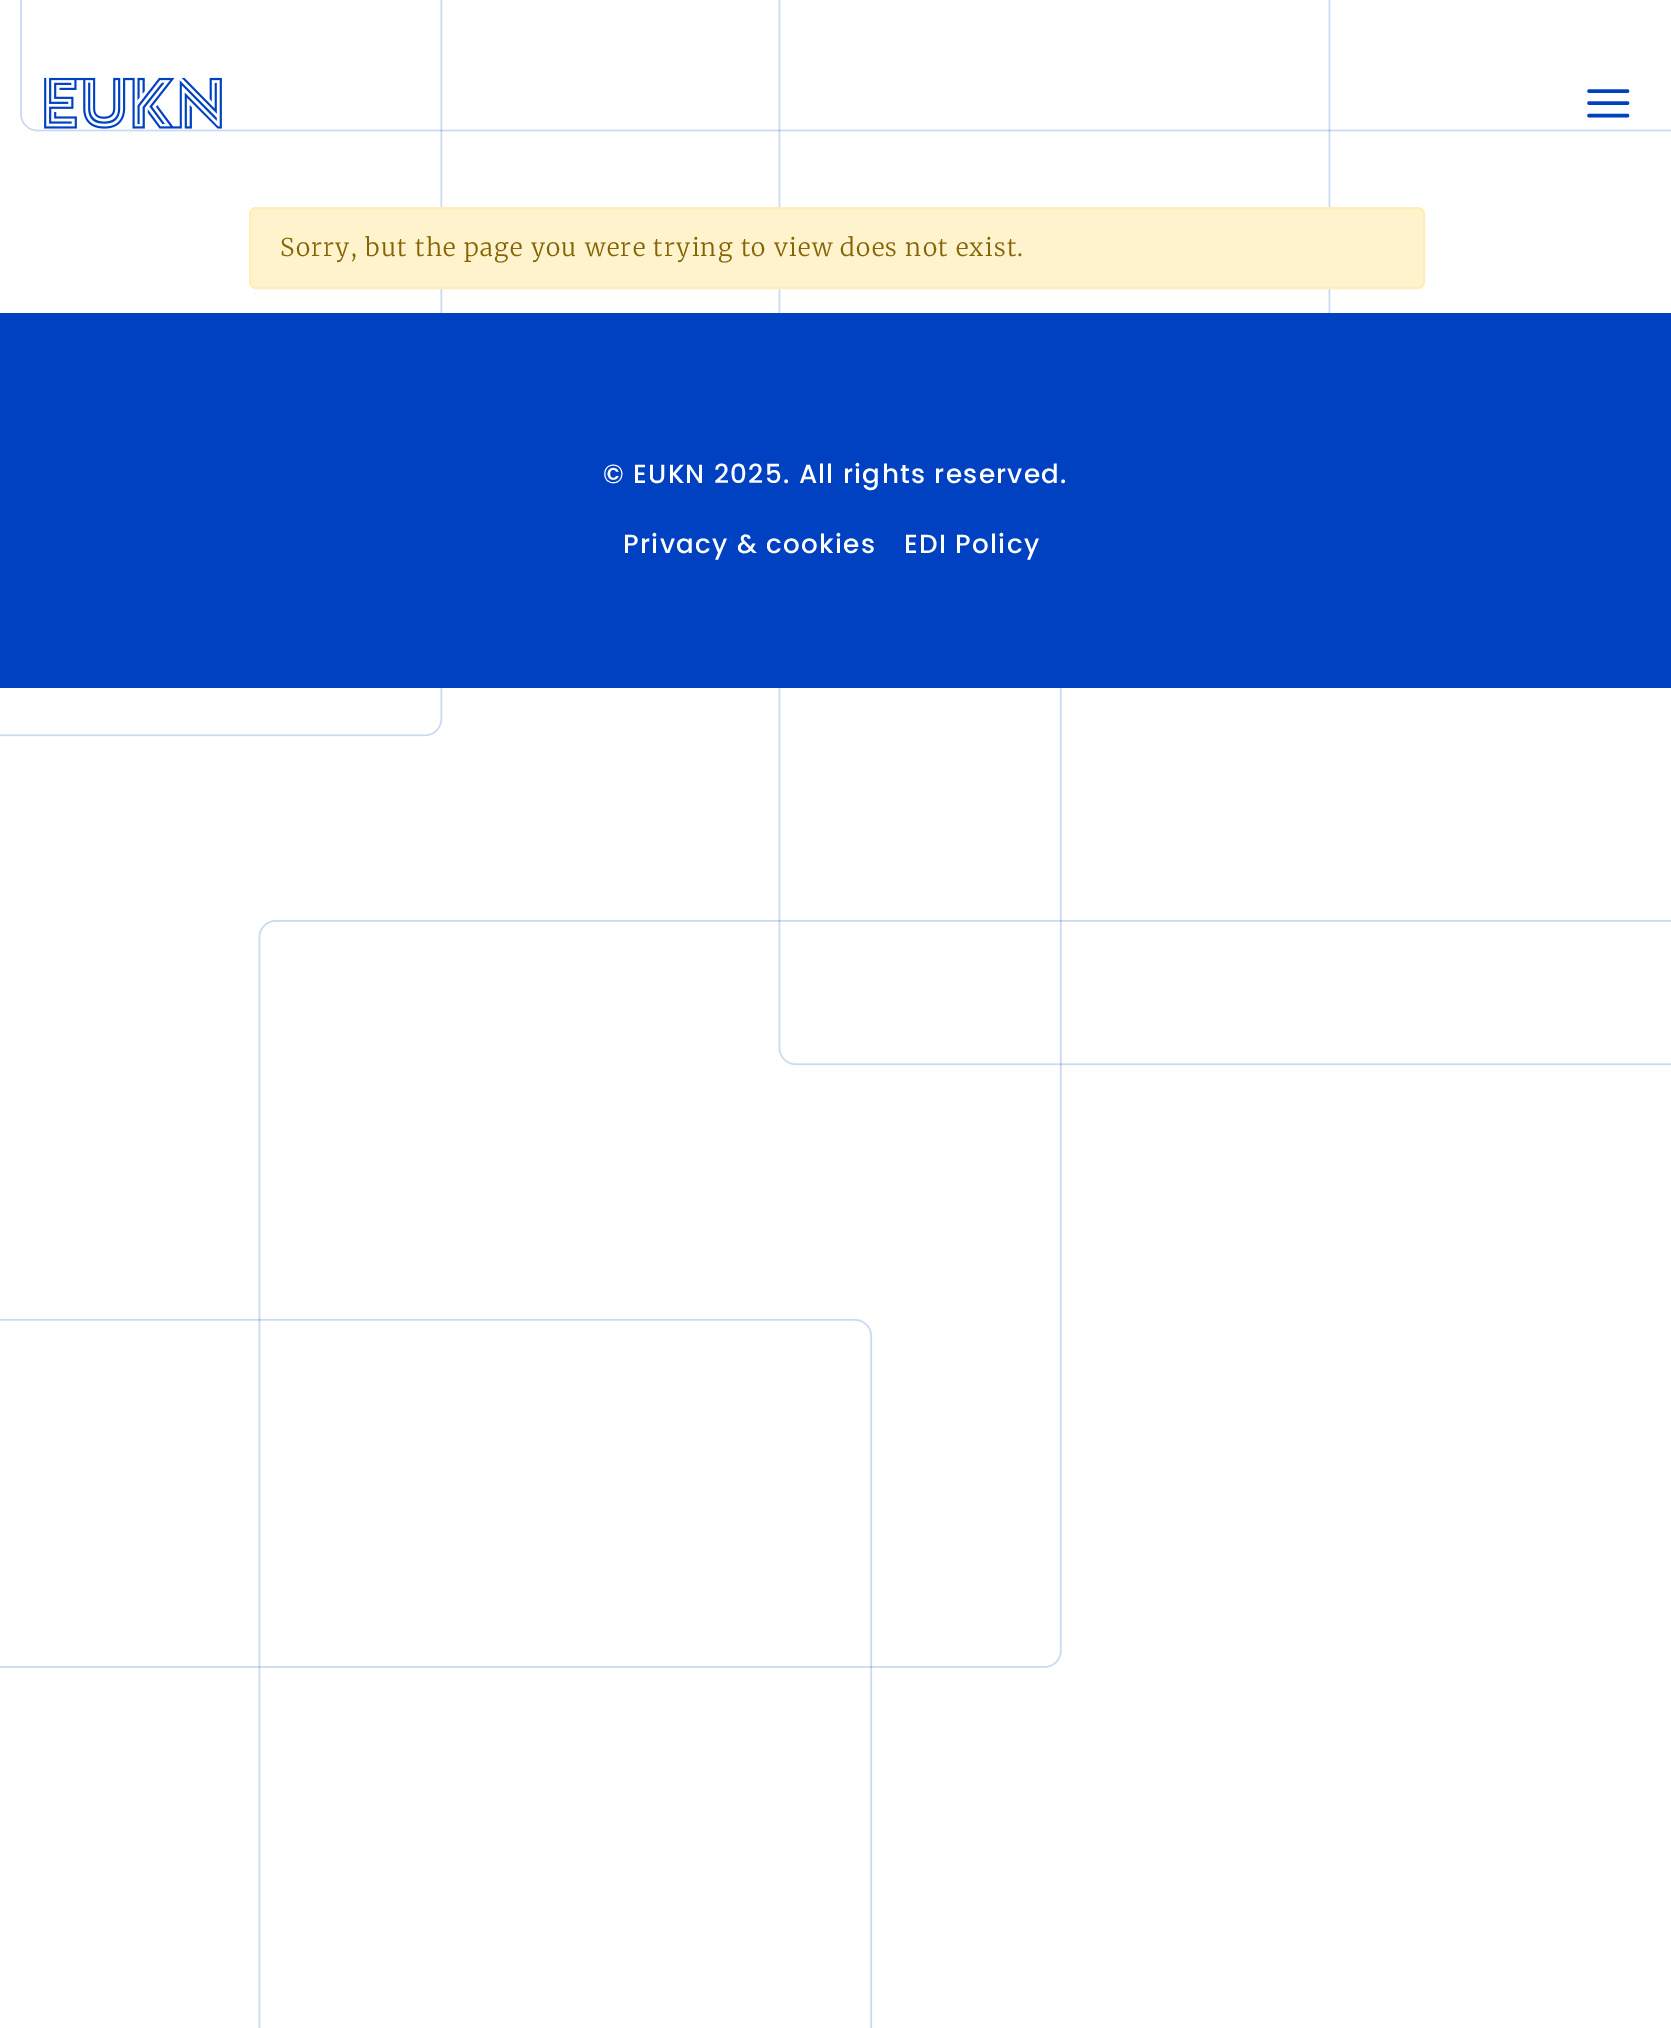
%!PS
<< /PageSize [1671 2028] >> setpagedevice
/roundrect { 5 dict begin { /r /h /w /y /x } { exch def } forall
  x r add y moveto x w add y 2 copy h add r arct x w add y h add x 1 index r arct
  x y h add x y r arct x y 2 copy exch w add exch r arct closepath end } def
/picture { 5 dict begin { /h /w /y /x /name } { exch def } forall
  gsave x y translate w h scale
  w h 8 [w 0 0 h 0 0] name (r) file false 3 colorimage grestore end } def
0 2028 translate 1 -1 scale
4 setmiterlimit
1 setgray
0 0 1671 2028 rectfill
(img1.rgb) 0 0 1671 2028 picture
(img2.rgb) 44 77 178 52 picture
0 0.255 0.761 setrgbcolor
3.5 setlinewidth
1 setlinecap
1 setlinejoin
newpath 1589 91 moveto 1627.5 91 lineto 1589 103 moveto 1627.5 103 lineto 1589 115.5 moveto 1627.5 115.5 lineto stroke
1 0.953 0.804 setrgbcolor
250 208 1174 80 6 roundrect gsave fill grestore
1 0.933 0.729 setrgbcolor
2 setlinewidth
0 setlinecap
0 setlinejoin
stroke
/Merriweather-Light [24.5 0 0 -24.5 0 0] selectfont
0.522 0.392 0.016 setrgbcolor
280 256 moveto 1.3 0 (Sorry, but the page you were trying to view does not exist.) ashow
0 0.255 0.761 setrgbcolor
0 313 1671 375 rectfill
/Poppins-Medium [26.25 0 0 -26.25 0 0] selectfont
1 setgray
603 483 moveto 1.3 0 (© EUKN 2025. All rights reserved.) ashow
623 553 moveto 1.3 0 (Privacy & cookies) ashow
904 553 moveto 1.3 0 (EDI Policy) ashow
showpage
